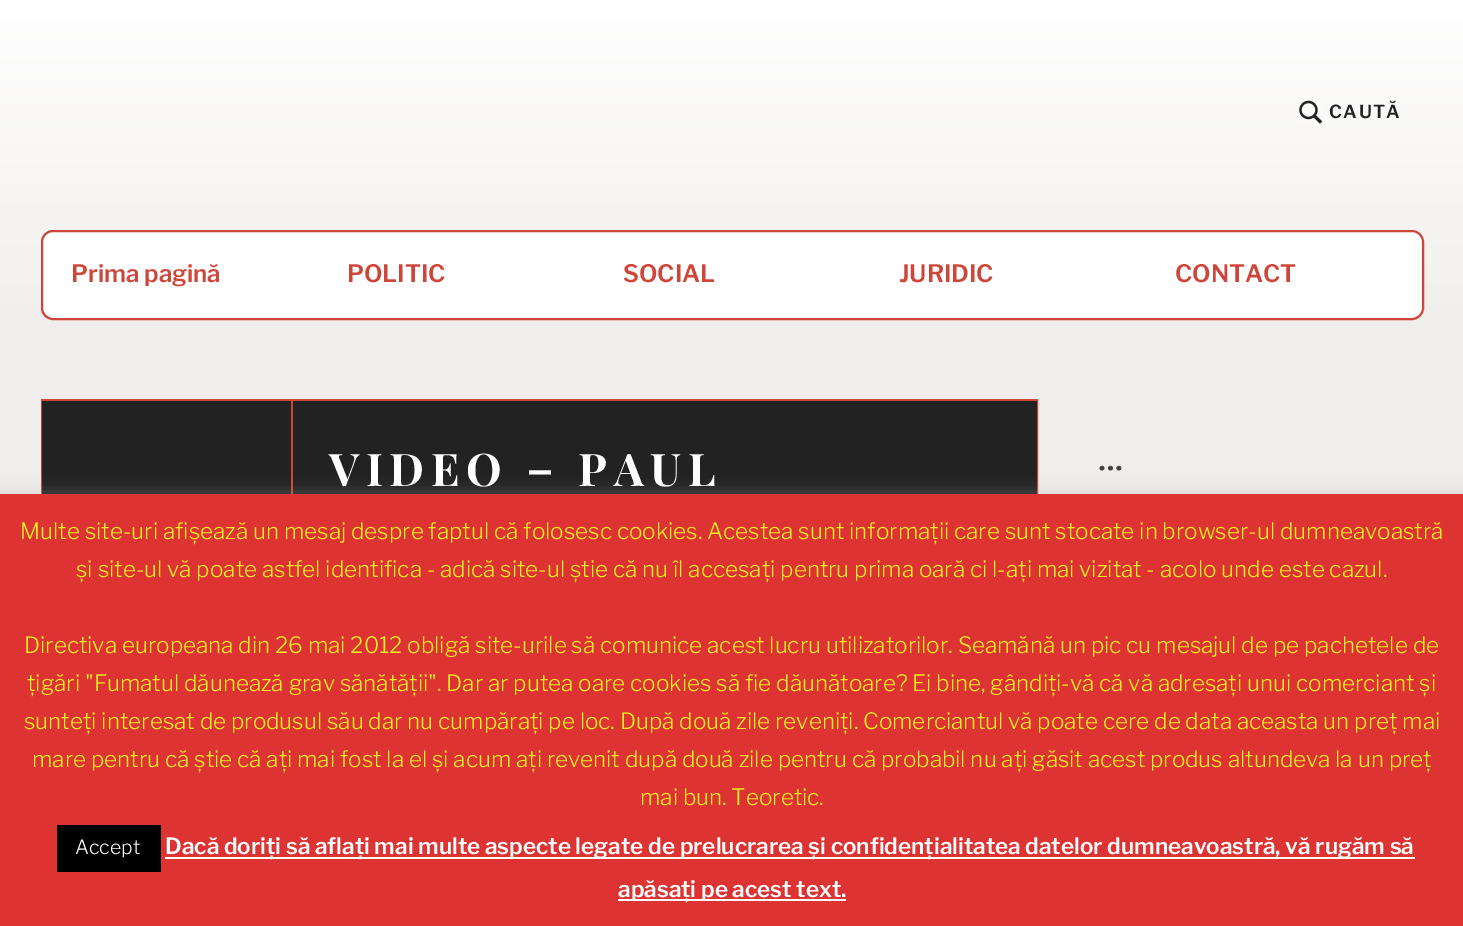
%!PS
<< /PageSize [1463 926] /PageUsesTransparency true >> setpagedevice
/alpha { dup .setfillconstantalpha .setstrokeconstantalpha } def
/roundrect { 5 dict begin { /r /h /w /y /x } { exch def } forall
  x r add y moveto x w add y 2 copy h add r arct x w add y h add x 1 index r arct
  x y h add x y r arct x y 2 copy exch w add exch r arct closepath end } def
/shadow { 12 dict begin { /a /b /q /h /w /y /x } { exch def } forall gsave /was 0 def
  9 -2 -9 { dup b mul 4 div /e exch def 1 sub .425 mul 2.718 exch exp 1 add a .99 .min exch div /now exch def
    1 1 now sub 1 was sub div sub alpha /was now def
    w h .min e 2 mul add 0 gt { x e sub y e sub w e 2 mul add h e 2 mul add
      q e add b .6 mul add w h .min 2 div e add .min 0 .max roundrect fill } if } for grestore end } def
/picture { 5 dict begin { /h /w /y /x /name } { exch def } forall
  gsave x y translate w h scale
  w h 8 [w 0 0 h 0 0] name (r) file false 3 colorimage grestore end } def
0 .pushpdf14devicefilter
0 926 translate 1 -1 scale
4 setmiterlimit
0.941 0.933 0.925 setrgbcolor
0 0 1463 926 rectfill
gsave newpath 0 0 moveto 1463 0 lineto 1463 305 lineto 0 305 lineto closepath clip newpath
<< /ShadingType 2 /ColorSpace /DeviceRGB /Coords [732 0 732 399] /Extend [true true] /Function << /FunctionType 3 /Domain [0 1] /Functions [<< /FunctionType 2 /Domain [0 1] /C0 [1 1 1] /C1 [0.941 0.933 0.925] /N 1 >> << /FunctionType 2 /Domain [0 1] /C0 [0.941 0.933 0.925] /C1 [0.941 0.933 0.925] /N 1 >>] /Bounds [0.88] /Encode [0 1 0 1] >> >> shfill grestore
(img1.rgb) 1299 100 24 24 picture
/LibreFranklin-SemiBold [18 0 0 -18 0 0] selectfont
0.133 setgray
1329 118 moveto 1.5 0 (CAUTĂ) ashow
1 setgray
42 231 1381 88 11 roundrect gsave fill grestore
0.808 0.275 0.224 setrgbcolor
2 setlinewidth
stroke
/LibreFranklin-SemiBold [24 0 0 -24 0 0] selectfont
71 282 moveto (Prima pagină) show
347 282 moveto (POLITIC) show
623 282 moveto (SOCIAL) show
899 282 moveto (JURIDIC) show
1175 282 moveto (CONTACT) show
42 400 995 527 rectstroke
0.133 setgray
42 401 995 93 rectfill
0.808 0.275 0.224 setrgbcolor
291 401 2 93 rectfill
/PlayfairDisplaySC-Bold [45 0 0 -45 0 0] selectfont
1 setgray
329 486 moveto 6.75 0 (VIDEO – PAUL) ashow
/PlayfairDisplaySC-Bold [30 0 0 -30 0 0] selectfont
0.263 setgray
1098 470 moveto 4 0 (…) ashow
0.675 0.671 0.671 setrgbcolor
0 492 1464 434 0 7.5 0.3 shadow
0.867 0.2 0.2 setrgbcolor
0 494 1463 432 rectfill
/LibreFranklin-Light [22.5 0 0 -22.5 0 0] selectfont
0.933 0.933 0.133 setrgbcolor
20 539 moveto (Multe site-uri afișează un mesaj despre faptul că folosesc cookies. Acestea sunt informații care sunt stocate in browser-ul dumneavoastră) show
76 577 moveto (și site-ul vă poate astfel identifica - adică site-ul știe că nu îl accesați pentru prima oară ci l-ați mai vizitat - acolo unde este cazul.) show
24 653 moveto (Directiva europeana din 26 mai 2012 obligă site-urile să comunice acest lucru utilizatorilor. Seamănă un pic cu mesajul de pe pachetele de) show
27 691 moveto (țigări "Fumatul dăunează grav sănătății". Dar ar putea oare cookies să fie dăunătoare? Ei bine, gândiți-vă că vă adresați unui comerciant și) show
24 729 moveto (sunteți interesat de produsul său dar nu cumpărați pe loc. După două zile reveniți. Comerciantul vă poate cere de data aceasta un preț mai) show
32 767 moveto (mare pentru că știe că ați mai fost la el și acum ați revenit după două zile pentru că probabil nu ați găsit acest produs altundeva la un preț) show
640 805 moveto (mai bun. Teoretic.) show
0 setgray
57 825 104 47 rectfill
/LibreFranklin-Light [19.5 0 0 -19.5 0 0] selectfont
1 setgray
75 854 moveto (Accept) show
165 857 1250 2 rectfill
/LibreFranklin-SemiBold [22.5 0 0 -22.5 0 0] selectfont
165 854 moveto (Dacă doriți să aflați mai multe aspecte legate de prelucrarea și confidențialitatea datelor dumneavoastră, vă rugăm să) show
618 899 228 2 rectfill
618 897 moveto (apăsați pe acest text.) show
.poppdf14devicefilter showpage
